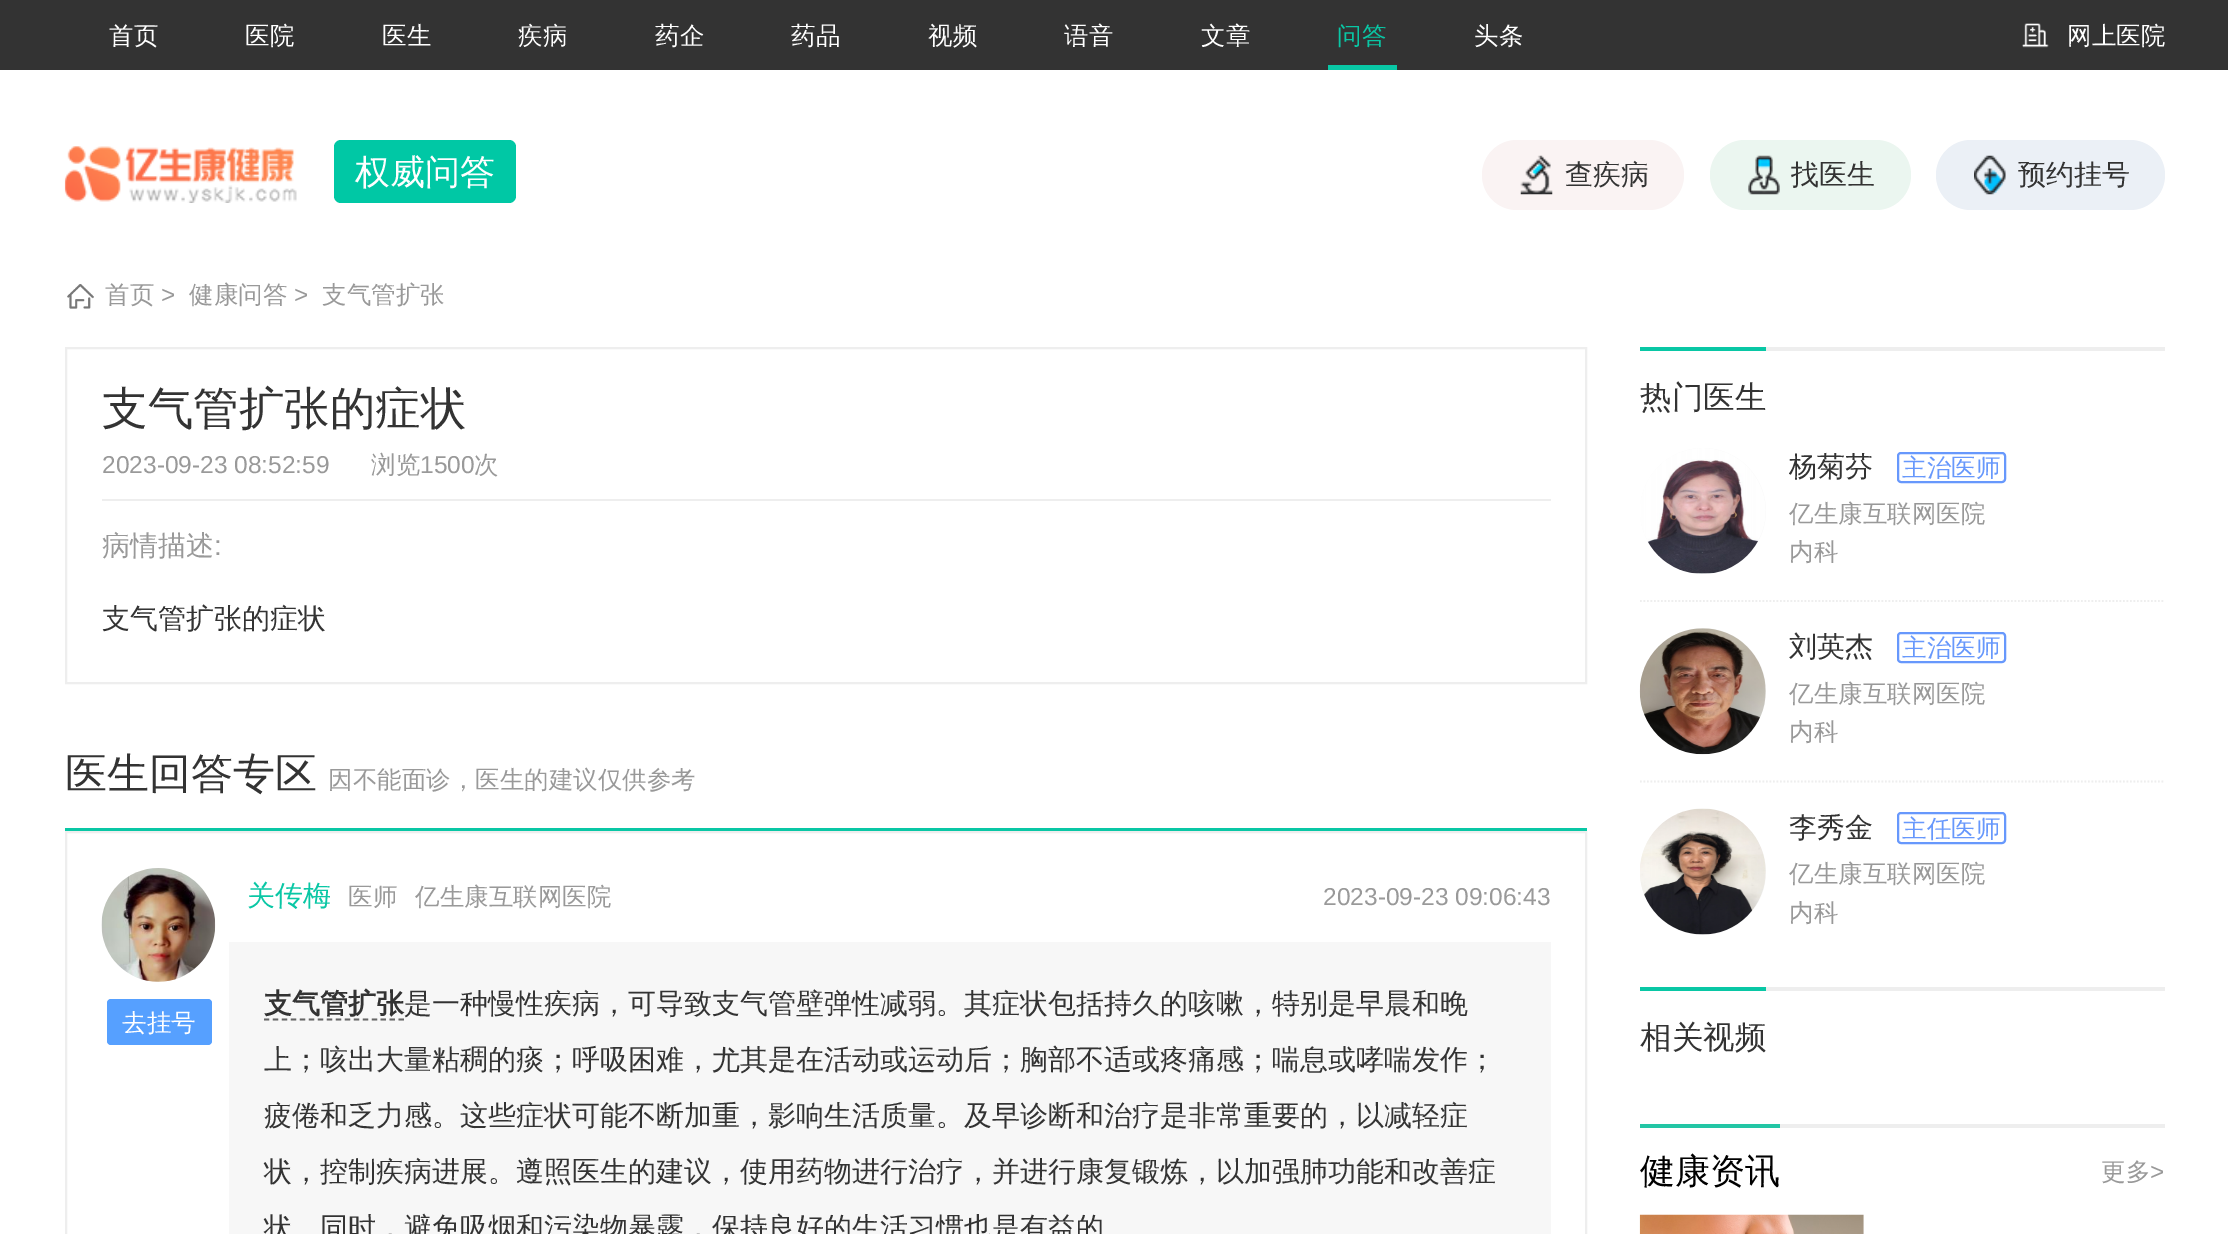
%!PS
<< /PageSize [2228 1234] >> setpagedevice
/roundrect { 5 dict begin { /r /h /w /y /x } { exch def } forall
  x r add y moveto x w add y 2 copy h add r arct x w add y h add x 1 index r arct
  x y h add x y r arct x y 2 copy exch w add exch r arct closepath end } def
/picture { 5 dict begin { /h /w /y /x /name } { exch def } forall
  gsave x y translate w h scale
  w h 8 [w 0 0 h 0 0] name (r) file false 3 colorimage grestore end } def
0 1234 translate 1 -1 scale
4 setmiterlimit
1 setgray
0 0 2228 1234 rectfill
0.2 setgray
0 0 2228 70 rectfill
/WenQuanYiZenHei-Medium [24.5 0 0 -24.5 0 0] selectfont
1 setgray
109 44 moveto (首页) show
245 44 moveto (医院) show
382 44 moveto (医生) show
518 44 moveto (疾病) show
655 44 moveto (药企) show
791 44 moveto (药品) show
928 44 moveto (视频) show
1064 44 moveto (语音) show
1201 44 moveto (文章) show
0.035 0.78 0.647 setrgbcolor
1337 44 moveto (问答) show
1328 65 69 5 rectfill
1 setgray
1474 44 moveto (头条) show
(img1.rgb) 2022 23 27 25 picture
2067 44 moveto (网上医院) show
(img2.rgb) 64 146 233 57 picture
0 0.784 0.647 setrgbcolor
334 140 182 63 7 roundrect fill
/WenQuanYiZenHei-Medium [35 0 0 -35 0 0] selectfont
1 setgray
355 184 moveto (权威问答) show
0.98 0.953 0.953 setrgbcolor
1482 140 202 70 35 roundrect fill
(img3.rgb) 1520 155 33 40 picture
/WenQuanYiZenHei-Medium [28 0 0 -28 0 0] selectfont
0.2 setgray
1565 184 moveto (查疾病) show
0.922 0.965 0.941 setrgbcolor
1710 140 201 70 35 roundrect fill
(img4.rgb) 1748 155 32 40 picture
0.2 setgray
1791 184 moveto (找医生) show
0.922 0.941 0.965 setrgbcolor
1936 140 229 70 35 roundrect fill
(img5.rgb) 1974 155 32 40 picture
0.2 setgray
2018 184 moveto (预约挂号) show
(img6.rgb) 67 284 27 25 picture
/WenQuanYiZenHei-Medium [24.5 0 0 -24.5 0 0] selectfont
0.6 setgray
105 303 moveto (首页) show
/LiberationSans-Regular [24.5 0 0 -24.5 0 0] selectfont
161 303 moveto (>) show
/WenQuanYiZenHei-Medium [24.5 0 0 -24.5 0 0] selectfont
189 303 moveto (健康问答) show
/LiberationSans-Regular [24.5 0 0 -24.5 0 0] selectfont
294 303 moveto (>) show
/WenQuanYiZenHei-Medium [24.5 0 0 -24.5 0 0] selectfont
322 303 moveto (支气管扩张) show
0.933 setgray
2 setlinewidth
66 348 1520 335 rectstroke
102 499 1449 2 rectfill
/WenQuanYiZenHei-Medium [45.5 0 0 -45.5 0 0] selectfont
0.2 setgray
102 424 moveto (支气管扩张的症状) show
/LiberationSans-Regular [24.5 0 0 -24.5 0 0] selectfont
0.6 setgray
102 473 moveto (2023-09-23 08:52:59) show
/WenQuanYiZenHei-Medium [24.5 0 0 -24.5 0 0] selectfont
371 473 moveto (浏览) show
/LiberationSans-Regular [24.5 0 0 -24.5 0 0] selectfont
420 473 moveto (1500) show
/WenQuanYiZenHei-Medium [24.5 0 0 -24.5 0 0] selectfont
474 473 moveto (次) show
/WenQuanYiZenHei-Medium [28 0 0 -28 0 0] selectfont
102 555 moveto (病情描述) show
/LiberationSans-Regular [28 0 0 -28 0 0] selectfont
214 555 moveto (:) show
/WenQuanYiZenHei-Medium [28 0 0 -28 0 0] selectfont
0.2 setgray
102 628 moveto (支气管扩张的症状) show
0.035 0.78 0.647 setrgbcolor
65 828 1522 3 rectfill
/WenQuanYiZenHei-Medium [42 0 0 -42 0 0] selectfont
0.2 setgray
65 788 moveto (医生回答专区) show
/WenQuanYiZenHei-Medium [24.5 0 0 -24.5 0 0] selectfont
0.6 setgray
328 788 moveto (因不能面诊，医生的建议仅供参考) show
0.933 setgray
66 832 1520 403 rectstroke
0.969 setgray
102 868 113 114 56.5 roundrect fill
(img7.rgb) 101 868 115 114 picture
0.337 0.627 1 setrgbcolor
107 999 105 46 4 roundrect fill
1 setgray
122 1031 moveto (去挂号) show
/WenQuanYiZenHei-Medium [28 0 0 -28 0 0] selectfont
0.035 0.78 0.647 setrgbcolor
247 905 moveto (关传梅) show
/WenQuanYiZenHei-Medium [24.5 0 0 -24.5 0 0] selectfont
0.6 setgray
348 905 moveto (医师) show
415 905 moveto (亿生康互联网医院) show
/LiberationSans-Regular [24.5 0 0 -24.5 0 0] selectfont
1323 905 moveto (2023-09-23 09:06:43) show
0.969 setgray
229 942 1322 292 rectfill
/WenQuanYiZenHei-Bold [28 0 0 -28 0 0] selectfont
0.2 setgray
264 1013 moveto (支气管扩张) show
0.4 setgray
1.8 setlinewidth
[5.25 3.73] 0 setdash
newpath 264 1019.5 moveto 404 1019.5 lineto stroke
/WenQuanYiZenHei-Medium [28 0 0 -28 0 0] selectfont
0.2 setgray
404 1013 moveto (是一种慢性疾病，可导致支气管壁弹性减弱。其症状包括持久的咳嗽，特别是早晨和晚) show
264 1069 moveto (上；咳出大量粘稠的痰；呼吸困难，尤其是在活动或运动后；胸部不适或疼痛感；喘息或哮喘发作；) show
264 1125 moveto (疲倦和乏力感。这些症状可能不断加重，影响生活质量。及早诊断和治疗是非常重要的，以减轻症) show
264 1181 moveto (状，控制疾病进展。遵照医生的建议，使用药物进行治疗，并进行康复锻炼，以加强肺功能和改善症) show
264 1237 moveto (状。同时，避免吸烟和污染物暴露，保持良好的生活习惯也是有益的) show
0.933 setgray
1766 347 399 4 rectfill
0.035 0.78 0.647 setrgbcolor
1640 347 126 4 rectfill
/WenQuanYiZenHei-Medium [31.5 0 0 -31.5 0 0] selectfont
0.2 setgray
1640 408 moveto (热门医生) show
0.933 setgray
[1.75 1.75] 0 setdash
newpath 1640 601 moveto 2165 601 lineto stroke
0.969 setgray
newpath 1703 511 63 0 360 arc closepath fill
(img8.rgb) 1640 448 126 126 picture
/WenQuanYiZenHei-Medium [28 0 0 -28 0 0] selectfont
0.2 setgray
1789 476 moveto (杨菊芬) show
0.404 0.596 0.988 setrgbcolor
2 setlinewidth
[] 0 setdash
1898 453 107 29 3 roundrect stroke
/WenQuanYiZenHei-Medium [24.5 0 0 -24.5 0 0] selectfont
1902 476 moveto (主治医师) show
0.6 setgray
1789 522 moveto (亿生康互联网医院) show
1789 560 moveto (内科) show
0.933 setgray
1.8 setlinewidth
[1.75 1.75] 0 setdash
newpath 1640 781.5 moveto 2165 781.5 lineto stroke
0.969 setgray
newpath 1703 691 63 0 360 arc closepath fill
(img9.rgb) 1639 628 127 127 picture
/WenQuanYiZenHei-Medium [28 0 0 -28 0 0] selectfont
0.2 setgray
1789 656 moveto (刘英杰) show
0.404 0.596 0.988 setrgbcolor
2 setlinewidth
[] 0 setdash
1898 633 107 29 3 roundrect stroke
/WenQuanYiZenHei-Medium [24.5 0 0 -24.5 0 0] selectfont
1902 656 moveto (主治医师) show
0.6 setgray
1789 702 moveto (亿生康互联网医院) show
1789 740 moveto (内科) show
0.969 setgray
newpath 1703 872 63 0 360 arc closepath fill
(img10.rgb) 1640 808 126 127 picture
/WenQuanYiZenHei-Medium [28 0 0 -28 0 0] selectfont
0.2 setgray
1789 837 moveto (李秀金) show
0.404 0.596 0.988 setrgbcolor
1898 813 107 30 3 roundrect stroke
/WenQuanYiZenHei-Medium [24.5 0 0 -24.5 0 0] selectfont
1902 837 moveto (主任医师) show
0.6 setgray
1789 882 moveto (亿生康互联网医院) show
1789 921 moveto (内科) show
0.933 setgray
1766 987 399 4 rectfill
0.035 0.78 0.647 setrgbcolor
1640 987 126 4 rectfill
/WenQuanYiZenHei-Medium [31.5 0 0 -31.5 0 0] selectfont
0.2 setgray
1640 1048 moveto (相关视频) show
0.933 setgray
1780 1124 385 4 rectfill
0.137 0.776 0.647 setrgbcolor
1640 1124 140 4 rectfill
/WenQuanYiZenHei-Medium [35 0 0 -35 0 0] selectfont
0 setgray
1640 1183 moveto (健康资讯) show
/WenQuanYiZenHei-Medium [24.5 0 0 -24.5 0 0] selectfont
0.6 setgray
2101 1180 moveto (更多) show
/LiberationSans-Regular [24.5 0 0 -24.5 0 0] selectfont
2150 1180 moveto (>) show
(img11.rgb) 1639 1214 225 20 picture
showpage
